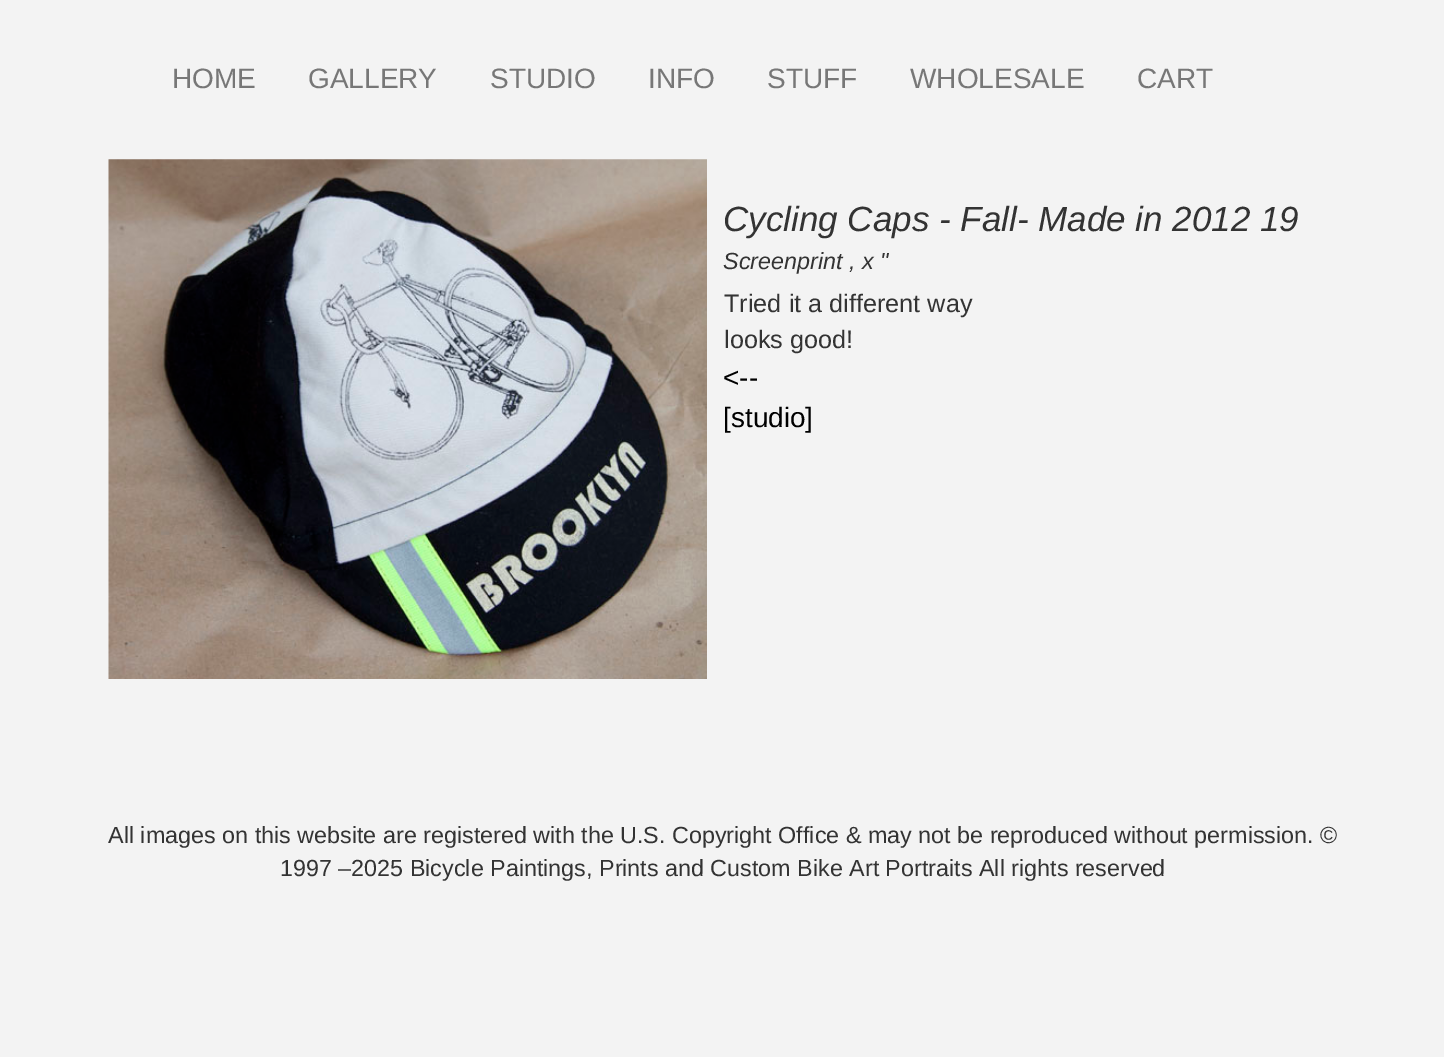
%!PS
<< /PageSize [1444 1057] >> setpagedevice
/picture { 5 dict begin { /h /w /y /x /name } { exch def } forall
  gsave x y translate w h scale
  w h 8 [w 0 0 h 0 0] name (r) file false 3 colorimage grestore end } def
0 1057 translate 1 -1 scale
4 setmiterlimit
0.953 setgray
0 0 1444 1057 rectfill
/LiberationSans-Regular [28 0 0 -28 0 0] selectfont
0.467 setgray
172 88 moveto (HOME) show
308 88 moveto (GALLERY) show
490 88 moveto (STUDIO) show
648 88 moveto (INFO) show
767 88 moveto (STUFF) show
910 88 moveto (WHOLESALE) show
1137 88 moveto (CART) show
(img1.rgb) 108 159 599 520 picture
/LiberationSans-Italic [35 0 0 -35 0 0] selectfont
0.2 setgray
723 231 moveto (Cycling Caps - Fall- Made in 2012 19) show
/LiberationSans-Italic [23.33 0 0 -23.33 0 0] selectfont
723 269 moveto (Screenprint , x ") show
/LiberationSans-Regular [25.25 0 0 -25.25 0 0] selectfont
724 312 moveto (Tried it a different way) show
724 348 moveto (looks good!) show
/LiberationSans-Regular [28 0 0 -28 0 0] selectfont
0 setgray
723 387 moveto (<--) show
723 427 moveto ([studio]) show
/LiberationSans-Regular [23.33 0 0 -23.33 0 0] selectfont
0.2 setgray
108 843 moveto (All images on this website are registered with the U.S. Copyright Office & may not be reproduced without permission. ©) show
280 876 moveto (1997 –2025 Bicycle Paintings, Prints and Custom Bike Art Portraits All rights reserved) show
showpage
